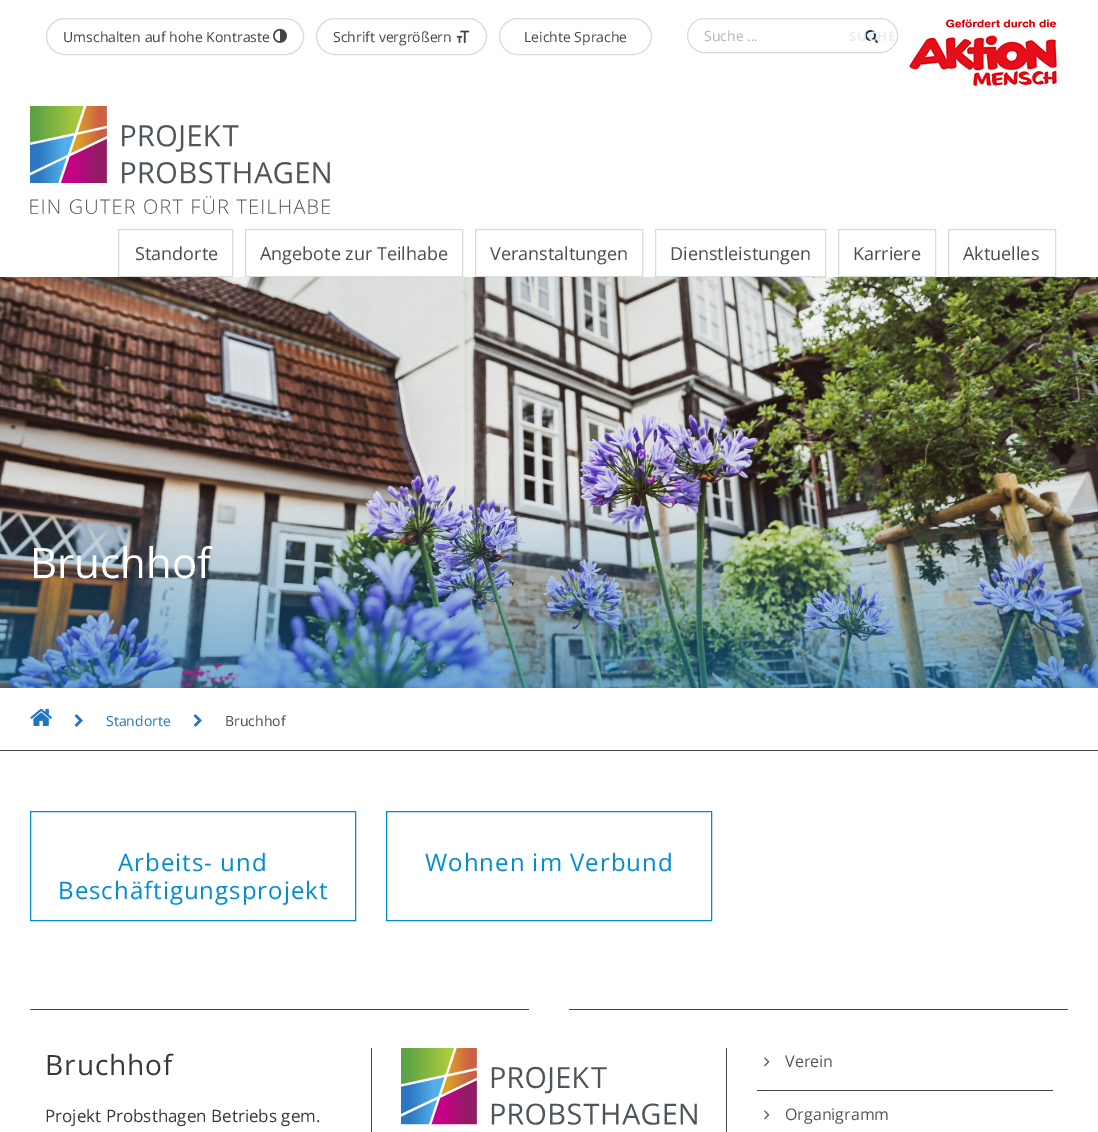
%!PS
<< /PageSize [1098 1132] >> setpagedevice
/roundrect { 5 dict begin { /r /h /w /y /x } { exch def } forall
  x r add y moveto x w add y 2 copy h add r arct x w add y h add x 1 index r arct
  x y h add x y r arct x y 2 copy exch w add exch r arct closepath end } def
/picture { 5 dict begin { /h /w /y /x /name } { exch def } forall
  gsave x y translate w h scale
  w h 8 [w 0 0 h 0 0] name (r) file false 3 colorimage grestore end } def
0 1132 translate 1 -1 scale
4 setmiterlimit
1 setgray
0 0 1098 1132 rectfill
0.855 setgray
46.5 18.5 257 36 18 roundrect stroke
/OpenSans-Regular [14 0 0 -14 0 0] selectfont
0.267 setgray
63 42 moveto (Umschalten auf hohe Kontraste) show
(img1.rgb) 273 28 14 15 picture
0.855 setgray
316.5 18.5 170 36 18 roundrect stroke
0.267 setgray
333 42 moveto (Schrift vergrößern) show
(img2.rgb) 456 30 14 13 picture
0.855 setgray
687.5 18.5 210 34 17 roundrect stroke
0.71 setgray
704 41 moveto (Suche ...) show
(img3.rgb) 865 30 13 13 picture
/OpenSans-Bold [13 0 0 -13 0 0] selectfont
0.922 0.933 0.937 setrgbcolor
849 41 moveto 1 0 (SUCHE) ashow
(img4.rgb) 909 19 148 67 picture
0.855 setgray
499.5 18.5 152 36 18 roundrect stroke
/OpenSans-Regular [14 0 0 -14 0 0] selectfont
0.294 0.275 0.271 setrgbcolor
524 42 moveto (Leichte Sprache) show
(img5.rgb) 30 106 300 108 picture
0.855 setgray
118.5 229.5 114 47 rectstroke
/OpenSans-Regular [18 0 0 -18 0 0] selectfont
0.267 0.314 0.333 setrgbcolor
135 260 moveto (Standorte) show
0.855 setgray
245.5 229.5 217 47 rectstroke
0.267 0.314 0.333 setrgbcolor
260 260 moveto (Angebote zur Teilhabe) show
0.855 setgray
475.5 229.5 167 47 rectstroke
0.267 0.314 0.333 setrgbcolor
490 260 moveto (Veranstaltungen) show
0.855 setgray
655.5 229.5 170 47 rectstroke
0.267 0.314 0.333 setrgbcolor
670 260 moveto (Dienstleistungen) show
0.855 setgray
838.5 229.5 97 47 rectstroke
0.267 0.314 0.333 setrgbcolor
853 260 moveto (Karriere) show
0.855 setgray
948.5 229.5 107 47 rectstroke
0.267 0.314 0.333 setrgbcolor
963 260 moveto (Aktuelles) show
(img6.rgb) 0 277 1098 411 picture
/OpenSans-Regular [42 0 0 -42 0 0] selectfont
1 setgray
30 578 moveto (Bruchhof) show
0.294 0.275 0.271 setrgbcolor
0 750 1098 1 rectfill
(img7.rgb) 30 708 22 18 picture
(img8.rgb) 74 714 9 13 picture
/OpenSans-Regular [14 0 0 -14 0 0] selectfont
0.141 0.459 0.749 setrgbcolor
106 726 moveto (Standorte) show
(img8.rgb) 193 714 9 13 picture
0.267 0.314 0.333 setrgbcolor
225 726 moveto (Bruchhof) show
0.004 0.553 0.824 setrgbcolor
30.5 811.5 325 109 rectstroke
/OpenSans-Regular [24 0 0 -24 0 0] selectfont
118 871 moveto 1 0 (Arbeits- und) ashow
58 899 moveto 1 0 (Beschäftigungsprojekt) ashow
386.5 811.5 325 109 rectstroke
425 871 moveto 1 0 (Wohnen im Verbund) ashow
0.294 0.275 0.271 setrgbcolor
30 1009 499 1 rectfill
569 1009 499 1 rectfill
/OpenSans-Regular [28 0 0 -28 0 0] selectfont
0.22 setgray
45 1075 moveto 1 0 (Bruchhof) ashow
/OpenSans-Regular [17 0 0 -17 0 0] selectfont
45 1122 moveto (Projekt Probsthagen Betriebs gem.) show
0.267 setgray
726 1048 1 84 rectfill
371 1048 1 84 rectfill
(img9.rgb) 401 1048 296 77 picture
0.294 0.275 0.271 setrgbcolor
757 1090 296 1 rectfill
(img10.rgb) 764 1057 6 10 picture
/OpenSans-Regular [16 0 0 -16 0 0] selectfont
0.302 0.333 0.357 setrgbcolor
785 1067 moveto (Verein) show
(img10.rgb) 764 1110 6 10 picture
785 1120 moveto (Organigramm) show
showpage
